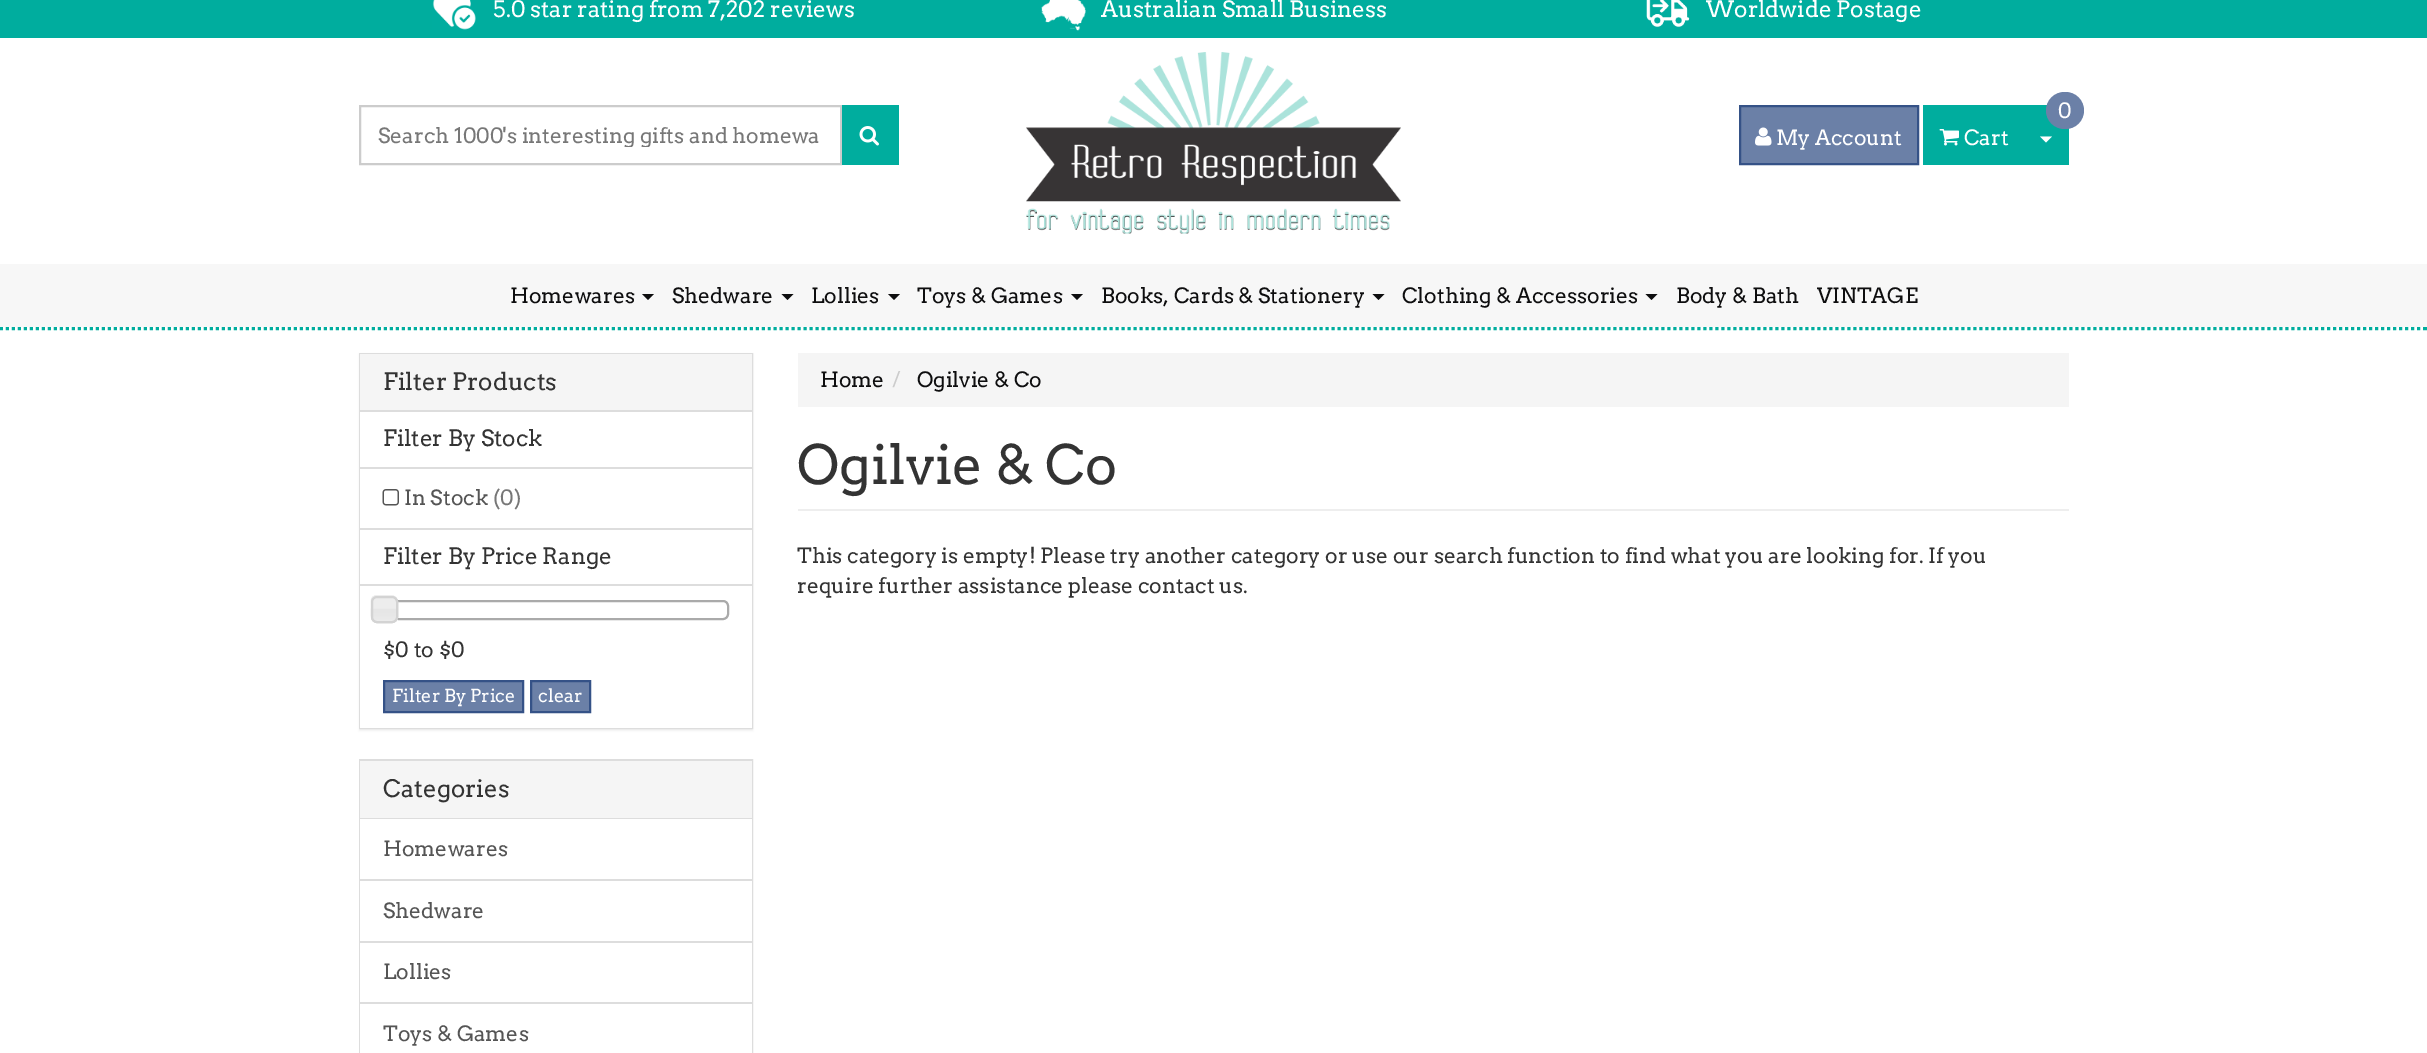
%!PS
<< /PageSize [2427 1053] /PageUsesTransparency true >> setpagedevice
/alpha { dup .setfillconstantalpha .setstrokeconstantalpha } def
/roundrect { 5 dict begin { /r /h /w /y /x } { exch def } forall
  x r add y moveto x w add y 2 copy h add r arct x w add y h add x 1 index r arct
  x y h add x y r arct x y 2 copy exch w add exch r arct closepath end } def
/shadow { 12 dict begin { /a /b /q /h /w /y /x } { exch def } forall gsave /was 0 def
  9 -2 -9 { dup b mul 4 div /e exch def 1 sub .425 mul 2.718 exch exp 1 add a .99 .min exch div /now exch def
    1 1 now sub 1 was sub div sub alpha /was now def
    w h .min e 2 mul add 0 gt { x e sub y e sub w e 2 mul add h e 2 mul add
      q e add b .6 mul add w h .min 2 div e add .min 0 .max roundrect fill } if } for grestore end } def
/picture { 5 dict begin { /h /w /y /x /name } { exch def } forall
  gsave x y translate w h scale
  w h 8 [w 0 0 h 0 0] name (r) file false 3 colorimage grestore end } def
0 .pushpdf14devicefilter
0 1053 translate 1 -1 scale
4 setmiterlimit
1 setgray
0 0 2427 1053 rectfill
0 0.678 0.62 setrgbcolor
0 0 2427 38 rectfill
(img1.rgb) 432 0 44 30 picture
/Arvo-Regular [22.5 0 0 -22.5 0 0] selectfont
1 setgray
493 17 moveto (5.0 star rating from 7,202 reviews) show
(img2.rgb) 1041 0 45 31 picture
1101 17 moveto (Australian Small Business) show
(img3.rgb) 1646 0 44 28 picture
1706 17 moveto (Worldwide Postage) show
0 0.678 0.62 setrgbcolor
3 setlinewidth
[3 3] 0 setdash
newpath 0 328.5 moveto 2427 328.5 lineto stroke
0.8 setgray
2 setlinewidth
[] 0 setdash
360 106 481 58 rectstroke
gsave
378 123 444 24 rectclip
/Arvo-Regular [21 0 0 -21 0 0] selectfont
0.467 setgray
378 143 moveto (Search 1000's interesting gifts and homewa) show
grestore
0 0.678 0.62 setrgbcolor
842 105 57 60 rectfill
(img4.rgb) 859 126 20 20 picture
(img5.rgb) 1026 52 375 182 picture
0.42 0.502 0.655 setrgbcolor
newpath 1740 106 moveto 1918 106 lineto 1918 164 lineto 1740 164 lineto closepath gsave fill grestore
0.208 0.322 0.529 setrgbcolor
stroke
(img6.rgb) 1755 127 17 19 picture
/Arvo-Regular [21 0 0 -21 0 0] selectfont
1 setgray
1776 145 moveto (My Account) show
0 0.678 0.62 setrgbcolor
1923 105 146 60 rectfill
0.42 0.502 0.655 setrgbcolor
2046 92 38 37 18.5 roundrect fill
1 setgray
2058 118 moveto (0) show
(img7.rgb) 1939 129 20 17 picture
1964 145 moveto (Cart) show
newpath 2040 136.5 moveto 2052 136.5 lineto 2046 142.5 lineto closepath fill
0.969 setgray
0 264 2427 63 rectfill
0.055 0.055 0.059 setrgbcolor
510 303 moveto (Homewares) show
newpath 642 294 moveto 654 294 lineto 648 300 lineto closepath fill
672 303 moveto (Shedware) show
newpath 781.5 294 moveto 793.5 294 lineto 787.5 300 lineto closepath fill
811 303 moveto (Lollies) show
newpath 888 294 moveto 900 294 lineto 894 300 lineto closepath fill
917 303 moveto (Toys & Games) show
newpath 1071 294 moveto 1083 294 lineto 1077 300 lineto closepath fill
1101 303 moveto (Books, Cards & Stationery) show
newpath 1372.5 294 moveto 1384.5 294 lineto 1378.5 300 lineto closepath fill
1402 303 moveto (Clothing & Accessories) show
newpath 1645.5 294 moveto 1657.5 294 lineto 1651.5 300 lineto closepath fill
1676 303 moveto (Body & Bath) show
1817 303 moveto (VINTAGE) show
0 setgray
359 354 394 377 0 1 0.05 shadow
0.867 setgray
360 354 392 374 rectstroke
0.961 setgray
360 354 392 56 rectfill
/Arvo-Regular [24 0 0 -24 0 0] selectfont
0.2 setgray
383 390 moveto (Filter Products) show
1 setgray
360 412 392 55 rectfill
0.867 setgray
360 410 392 2 rectfill
/Arvo-Regular [22.5 0 0 -22.5 0 0] selectfont
0.2 setgray
383 446 moveto (Filter By Stock) show
1 setgray
360 469 392 59 rectfill
0.867 setgray
360 467 392 2 rectfill
(img8.rgb) 382 489 17 17 picture
/Arvo-Regular [21 0 0 -21 0 0] selectfont
0.333 setgray
404 505 moveto (In Stock) show
0.467 setgray
493 505 moveto (\(0\)) show
1 setgray
360 530 392 54 rectfill
0.867 setgray
360 528 392 2 rectfill
/Arvo-Regular [22.5 0 0 -22.5 0 0] selectfont
0.2 setgray
383 564 moveto (Filter By Price Range) show
1 setgray
360 586 392 142 rectfill
0.867 setgray
360 584 392 2 rectfill
0.667 setgray
384 601 344 18 5 roundrect stroke
(img9.rgb) 370 595 28 27 picture
0.827 setgray
372 597 25 25 5 roundrect stroke
(img10.rgb) 370 595 27 27 picture
372 597 25 25 5 roundrect stroke
/Arvo-Regular [21 0 0 -21 0 0] selectfont
0.2 setgray
383 657 moveto ($0 to $0) show
0.42 0.502 0.655 setrgbcolor
newpath 384 681 moveto 523 681 lineto 523 712 lineto 384 712 lineto closepath gsave fill grestore
0.208 0.322 0.529 setrgbcolor
stroke
/Arvo-Regular [18 0 0 -18 0 0] selectfont
1 setgray
392 702 moveto (Filter By Price) show
0.42 0.502 0.655 setrgbcolor
newpath 531 681 moveto 590 681 lineto 590 712 lineto 531 712 lineto closepath gsave fill grestore
0.208 0.322 0.529 setrgbcolor
stroke
1 setgray
538 702 moveto (clear) show
0.867 setgray
360 760 392 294 rectstroke
0.961 setgray
360 761 392 57 rectfill
0.867 setgray
360 818 392 1 rectfill
/Arvo-Regular [24 0 0 -24 0 0] selectfont
0.2 setgray
383 797 moveto (Categories) show
1 setgray
360 819 392 60 rectfill
0.867 setgray
360 879 392 2 rectfill
/Arvo-Regular [21 0 0 -21 0 0] selectfont
0.333 setgray
383 856 moveto (Homewares) show
1 setgray
360 881 392 60 rectfill
0.333 setgray
383 918 moveto (Shedware) show
1 setgray
360 943 392 59 rectfill
0.867 setgray
360 941 392 2 rectfill
360 1002 392 2 rectfill
0.333 setgray
383 979 moveto (Lollies) show
1 setgray
360 1004 392 49 rectfill
0.333 setgray
383 1041 moveto (Toys & Games) show
0.961 setgray
798 353 1271 54 rectfill
0.055 0.055 0.059 setrgbcolor
820 387 moveto (Home) show
0.8 setgray
892 387 moveto (/) show
0.055 0.055 0.059 setrgbcolor
917 387 moveto (Ogilvie & Co) show
0.933 setgray
798 509 1271 2 rectfill
/Arvo-Regular [54 0 0 -54 0 0] selectfont
0.2 setgray
797 484 moveto (Ogilvie & Co) show
/Arvo-Regular [21 0 0 -21 0 0] selectfont
797 563 moveto (This category is empty! Please try another category or use our search function to find what you are looking for. If you) show
797 593 moveto (require further assistance please contact us.) show
.poppdf14devicefilter showpage
